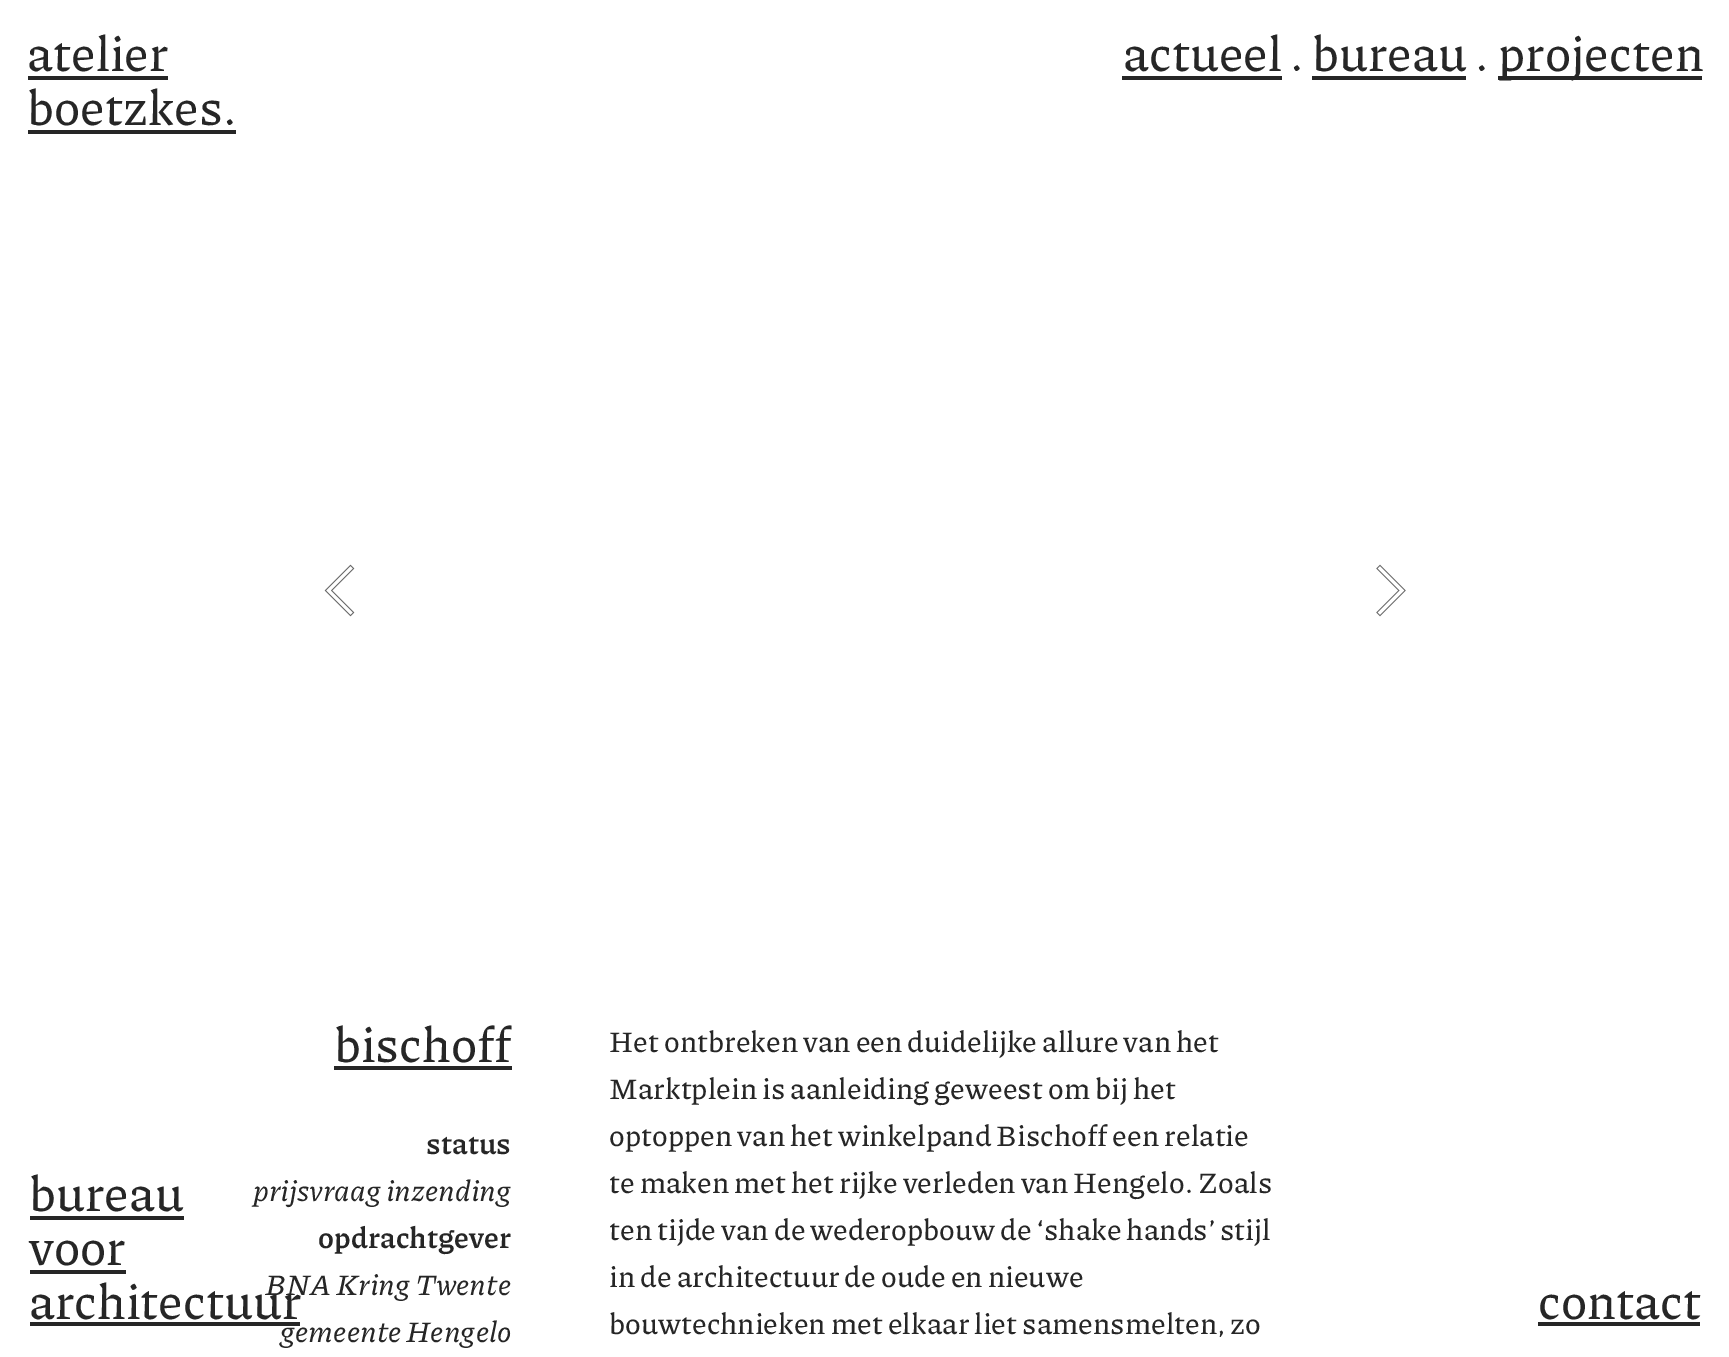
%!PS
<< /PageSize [1729 1357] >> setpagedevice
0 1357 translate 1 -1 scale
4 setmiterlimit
1 setgray
0 0 1729 1357 rectfill
/Piazzolla-Medium [49 0 0 -49 0 0] selectfont
0.149 setgray
27 71 moveto (atelier) show
28 76 140 4 rectfill
27 125 moveto (boetzkes.) show
28 130 208 4 rectfill
1123 71 moveto (actueel) show
1122 76 160 4 rectfill
1290 71 moveto (. bureau) show
1475 71 moveto (.) show
1498 76 204 4 rectfill
1498 71 moveto (projecten) show
1312 76 154 4 rectfill
0.4 setgray
5 setlinewidth
2 setlinecap
newpath 350.5 612.5 moveto 328.5 590.5 lineto 350.5 568.5 lineto stroke
1 setgray
3 setlinewidth
newpath 350.5 612.5 moveto 328.5 590.5 lineto 350.5 568.5 lineto stroke
0.4 setgray
5 setlinewidth
newpath 1380 612.5 moveto 1402 590.5 lineto 1380 568.5 lineto stroke
1 setgray
3 setlinewidth
newpath 1380 612.5 moveto 1402 590.5 lineto 1380 568.5 lineto stroke
0.149 setgray
334 1062 moveto (bischoff) show
334 1066 178 4 rectfill
/Piazzolla-Bold [29.3 0 0 -29.3 0 0] selectfont
426 1154 moveto (status) show
/Piazzolla-MediumItalic [29.3 0 0 -29.3 0 0] selectfont
253 1201 moveto (prijsvraag inzending) show
/Piazzolla-Bold [29.3 0 0 -29.3 0 0] selectfont
318 1248 moveto (opdrachtgever) show
/Piazzolla-MediumItalic [29.3 0 0 -29.3 0 0] selectfont
265 1295 moveto (BNA Kring Twente) show
280 1342 moveto (gemeente Hengelo) show
/Piazzolla-Medium [29.3 0 0 -29.3 0 0] selectfont
609 1052 moveto (Het ontbreken van een duidelijke allure van het) show
609 1099 moveto (Marktplein is aanleiding geweest om bij het) show
609 1146 moveto (optoppen van het winkelpand Bischoff een relatie) show
609 1193 moveto (te maken met het rijke verleden van Hengelo. Zoals) show
609 1240 moveto (ten tijde van de wederopbouw de ‘shake hands’ stijl) show
609 1287 moveto (in de architectuur de oude en nieuwe) show
609 1334 moveto (bouwtechnieken met elkaar liet samensmelten, zo) show
/Piazzolla-Medium [49 0 0 -49 0 0] selectfont
29 1211 moveto (bureau) show
30 1216 154 4 rectfill
29 1265 moveto (voor) show
30 1270 96 4 rectfill
29 1319 moveto (architectuur) show
30 1322 270 4 rectfill
1538 1319 moveto (contact) show
1538 1322 162 4 rectfill
showpage
